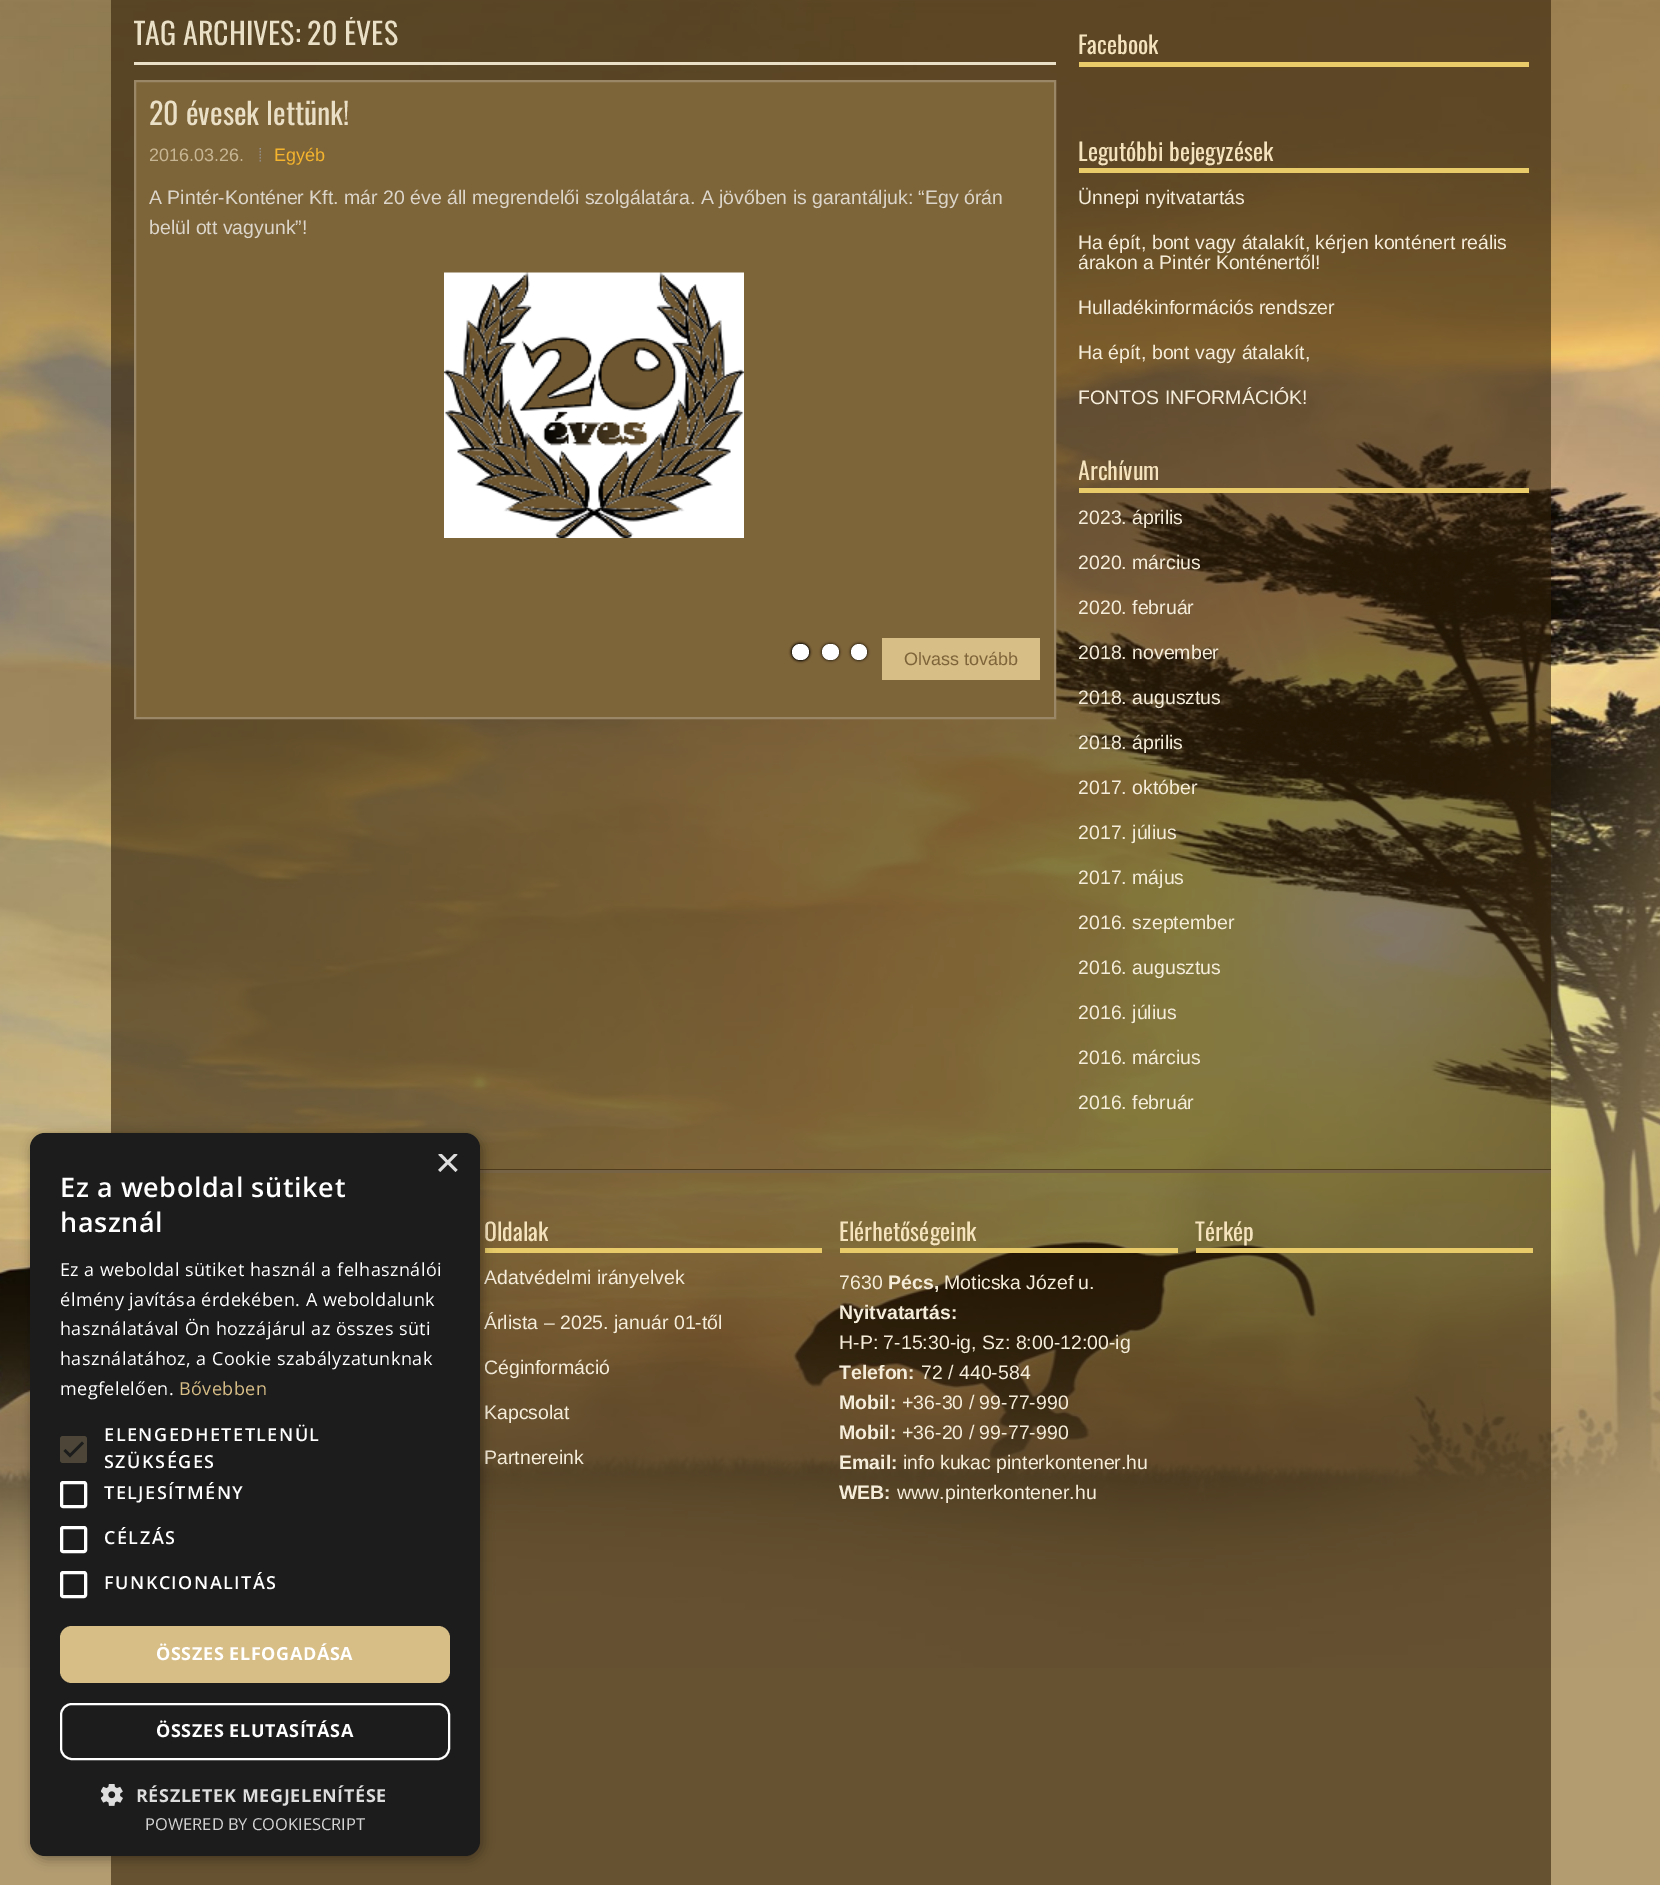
%!PS
<< /PageSize [1660 1885] /PageUsesTransparency true >> setpagedevice
/alpha { dup .setfillconstantalpha .setstrokeconstantalpha } def
/roundrect { 5 dict begin { /r /h /w /y /x } { exch def } forall
  x r add y moveto x w add y 2 copy h add r arct x w add y h add x 1 index r arct
  x y h add x y r arct x y 2 copy exch w add exch r arct closepath end } def
/shadow { 12 dict begin { /a /b /q /h /w /y /x } { exch def } forall gsave /was 0 def
  9 -2 -9 { dup b mul 4 div /e exch def 1 sub .425 mul 2.718 exch exp 1 add a .99 .min exch div /now exch def
    1 1 now sub 1 was sub div sub alpha /was now def
    w h .min e 2 mul add 0 gt { x e sub y e sub w e 2 mul add h e 2 mul add
      q e add b .6 mul add w h .min 2 div e add .min 0 .max roundrect fill } if } for grestore end } def
/picture { 5 dict begin { /h /w /y /x /name } { exch def } forall
  gsave x y translate w h scale
  w h 8 [w 0 0 h 0 0] name (r) file false 3 colorimage grestore end } def
0 .pushpdf14devicefilter
0 1885 translate 1 -1 scale
4 setmiterlimit
0.702 0.612 0.439 setrgbcolor
0 0 1660 1885 rectfill
(img1.rgb) 0 0 1660 1668 picture
0.6 alpha
0.196 0.125 0.027 setrgbcolor
111 0 1440 1170 rectfill
1 alpha
0.918 0.878 0.78 setrgbcolor
134 62 922 3 rectfill
gsave
134 17 922 724 rectclip
/Oswald-Regular [30 0 0 -30 0 0] selectfont
133 45 moveto (TAG ARCHIVES: 20 ÉVES) show
grestore
0.494 0.392 0.224 setrgbcolor
newpath 135 81 moveto 1055 81 lineto 1055 718 lineto 135 718 lineto closepath gsave fill grestore
0.604 0.529 0.404 setrgbcolor
2 setlinewidth
stroke
/Oswald-Regular [30 0 0 -30 0 0] selectfont
0.918 0.878 0.78 setrgbcolor
149 125 moveto (20 évesek lettünk!) show
/LiberationSans-Regular [18 0 0 -18 0 0] selectfont
0.78 0.714 0.576 setrgbcolor
149 161 moveto (2016.03.26.) show
(img2.rgb) 259 148 2 14 picture
0.961 0.706 0.176 setrgbcolor
274 161 moveto (Egyéb) show
/LiberationSans-Regular [19.5 0 0 -19.5 0 0] selectfont
0.859 0.835 0.792 setrgbcolor
149 204 moveto (A Pintér-Konténer Kft. már 20 éve áll megrendelői szolgálatára. A jövőben is garantáljuk: “Egy órán) show
149 234 moveto (belül ott vagyunk”!) show
(img3.rgb) 444 272 300 266 picture
0.843 0.741 0.525 setrgbcolor
882 638 158 42 rectfill
/LiberationSans-Regular [18 0 0 -18 0 0] selectfont
0.494 0.392 0.224 setrgbcolor
904 665 moveto (Olvass tovább) show
0.914 0.796 0.412 setrgbcolor
1079 62 450 5 rectfill
/Oswald-Regular [24 0 0 -24 0 0] selectfont
0.961 0.89 0.741 setrgbcolor
1078 54 moveto (Facebook) show
0.914 0.796 0.412 setrgbcolor
1079 168 450 5 rectfill
0.961 0.89 0.741 setrgbcolor
1078 161 moveto (Legutóbbi bejegyzések) show
/LiberationSans-Regular [19.5 0 0 -19.5 0 0] selectfont
0.961 0.925 0.851 setrgbcolor
1078 204 moveto (Ünnepi nyitvatartás) show
1078 249 moveto (Ha épít, bont vagy átalakít, kérjen konténert reális) show
gsave
1079 17 450 1131 rectclip
1078 269 moveto (árakon a Pintér Konténertől!) show
grestore
1078 314 moveto (Hulladékinformációs rendszer) show
1078 359 moveto (Ha épít, bont vagy átalakít,) show
1078 404 moveto (FONTOS INFORMÁCIÓK!) show
0.914 0.796 0.412 setrgbcolor
1079 488 450 5 rectfill
gsave
1079 17 450 1131 rectclip
/Oswald-Regular [24 0 0 -24 0 0] selectfont
0.961 0.89 0.741 setrgbcolor
1078 480 moveto (Archívum) show
/LiberationSans-Regular [19.5 0 0 -19.5 0 0] selectfont
0.961 0.925 0.851 setrgbcolor
1078 524 moveto (2023. április) show
1078 569 moveto (2020. március) show
1078 614 moveto (2020. február) show
1078 659 moveto (2018. november) show
1078 704 moveto (2018. augusztus) show
1078 749 moveto (2018. április) show
1078 794 moveto (2017. október) show
1078 839 moveto (2017. július) show
1078 884 moveto (2017. május) show
1078 929 moveto (2016. szeptember) show
1078 974 moveto (2016. augusztus) show
1078 1019 moveto (2016. július) show
1078 1064 moveto (2016. március) show
1078 1109 moveto (2016. február) show
grestore
0.6 alpha
0.196 0.125 0.027 setrgbcolor
111 1169 1440 716 rectfill
1 alpha
0.463 0.384 0.267 setrgbcolor
480 1170 1071 3 rectfill
0.914 0.796 0.412 setrgbcolor
485 1248 337 5 rectfill
/Oswald-Regular [24 0 0 -24 0 0] selectfont
0.961 0.89 0.741 setrgbcolor
484 1241 moveto (Oldalak) show
/LiberationSans-Regular [19.5 0 0 -19.5 0 0] selectfont
0.961 0.925 0.851 setrgbcolor
484 1284 moveto (Adatvédelmi irányelvek) show
484 1329 moveto (Árlista – 2025. január 01-től) show
484 1374 moveto (Céginformáció) show
484 1419 moveto (Kapcsolat) show
484 1464 moveto (Partnereink) show
0.914 0.796 0.412 setrgbcolor
840 1248 338 5 rectfill
/Oswald-Regular [24 0 0 -24 0 0] selectfont
0.961 0.89 0.741 setrgbcolor
839 1241 moveto (Elérhetőségeink) show
/LiberationSans-Regular [19.5 0 0 -19.5 0 0] selectfont
0.961 0.925 0.851 setrgbcolor
839 1289 moveto (7630) show
/LiberationSans-Bold [19.5 0 0 -19.5 0 0] selectfont
888 1289 moveto (Pécs,) show
/LiberationSans-Regular [19.5 0 0 -19.5 0 0] selectfont
944 1289 moveto (Moticska Józef u.) show
/LiberationSans-Bold [19.5 0 0 -19.5 0 0] selectfont
839 1319 moveto (Nyitvatartás:) show
/LiberationSans-Regular [19.5 0 0 -19.5 0 0] selectfont
839 1349 moveto (H-P: 7-15:30-ig, Sz: 8:00-12:00-ig) show
/LiberationSans-Bold [19.5 0 0 -19.5 0 0] selectfont
839 1379 moveto (Telefon:) show
/LiberationSans-Regular [19.5 0 0 -19.5 0 0] selectfont
921 1379 moveto (72 / 440-584) show
/LiberationSans-Bold [19.5 0 0 -19.5 0 0] selectfont
839 1409 moveto (Mobil:) show
/LiberationSans-Regular [19.5 0 0 -19.5 0 0] selectfont
902 1409 moveto (+36-30 / 99-77-990) show
/LiberationSans-Bold [19.5 0 0 -19.5 0 0] selectfont
839 1439 moveto (Mobil:) show
/LiberationSans-Regular [19.5 0 0 -19.5 0 0] selectfont
902 1439 moveto (+36-20 / 99-77-990) show
/LiberationSans-Bold [19.5 0 0 -19.5 0 0] selectfont
839 1469 moveto (Email:) show
/LiberationSans-Regular [19.5 0 0 -19.5 0 0] selectfont
903 1469 moveto (info kukac pinterkontener.hu) show
/LiberationSans-Bold [19.5 0 0 -19.5 0 0] selectfont
839 1499 moveto (WEB:) show
/LiberationSans-Regular [19.5 0 0 -19.5 0 0] selectfont
897 1499 moveto (www.pinterkontener.hu) show
0 setgray
792 644 17 16 8 1.5 1 shadow
792 644 17 16 8 1.5 1 shadow
1 setgray
792 644 17 16 8 roundrect fill
0 setgray
822 644 17 16 8 1.5 1 shadow
1 setgray
822 644 17 16 8 roundrect fill
0 setgray
851 644 16 16 8 1.5 1 shadow
1 setgray
newpath 859 652 8 0 360 arc closepath fill
0.914 0.796 0.412 setrgbcolor
1196 1248 337 5 rectfill
/Oswald-Regular [24 0 0 -24 0 0] selectfont
0.961 0.89 0.741 setrgbcolor
1195 1241 moveto (Térkép) show
0 setgray
32 1136 450 723 15 6 0.35 shadow
0.11 setgray
30 1133 450 723 15 roundrect fill
gsave
435 1154 23 22 rectclip
/LiberationSans-Regular [44 0 0 -44 0 0] selectfont
0.867 setgray
435 1177 moveto (×) show
grestore
/OpenSans-SemiBold [27 0 0 -27 0 0] selectfont
1 setgray
60 1197 moveto 0.6 0 (Ez a weboldal sütiket) ashow
60 1232 moveto 0.6 0 (használ) ashow
/OpenSans-Regular [18 0 0 -18 0 0] selectfont
60 1276 moveto 0.45 0 (Ez a weboldal sütiket használ a felhasználói) ashow
60 1306 moveto 0.45 0 (élmény javítása érdekében. A weboldalunk) ashow
60 1335 moveto 0.45 0 (használatával Ön hozzájárul az összes süti) ashow
60 1365 moveto 0.45 0 (használatához, a Cookie szabályzatunknak) ashow
60 1395 moveto 0.45 0 (megfelelően.) ashow
0.843 0.741 0.525 setrgbcolor
179 1395 moveto 0.45 0 (Bővebben) ashow
0.302 0.275 0.22 setrgbcolor
60 1436 27 27 3 roundrect fill
0.11 setgray
2.7 setlinewidth
newpath 64.5 1450 moveto 70 1455.5 lineto 83 1442.5 lineto stroke
/OpenSans-SemiBold [18 0 0 -18 0 0] selectfont
1 setgray
104 1441 moveto 1.5 0 (ELENGEDHETETLENÜL) ashow
104 1468 moveto 1.5 0 (SZÜKSÉGES) ashow
3 setlinewidth
61.5 1482.5 24 24 1.5 roundrect stroke
104 1499 moveto 1.5 0 (TELJESÍTMÉNY) ashow
61.5 1527.5 24 24 1.5 roundrect stroke
104 1544 moveto 1.5 0 (CÉLZÁS) ashow
61.5 1572.5 24 24 1.5 roundrect stroke
104 1589 moveto 1.5 0 (FUNKCIONALITÁS) ashow
0.843 0.741 0.525 setrgbcolor
60 1626 390 57 12 roundrect fill
/OpenSans-Bold [18 0 0 -18 0 0] selectfont
1 setgray
156 1660 moveto 0.6 0 (ÖSSZES ELFOGADÁSA) ashow
2 setlinewidth
61 1704 388 55 11 roundrect stroke
156 1737 moveto 0.6 0 (ÖSSZES ELUTASÍTÁSA) ashow
(img4.rgb) 101 1784 22 22 picture
0.867 setgray
136 1802 moveto 0.6 0 (RÉSZLETEK MEGJELENÍTÉSE) ashow
/OpenSans-Regular [16.5 0 0 -16.5 0 0] selectfont
0.824 setgray
145 1830 moveto (POWERED BY COOKIESCRIPT) show
.poppdf14devicefilter showpage
